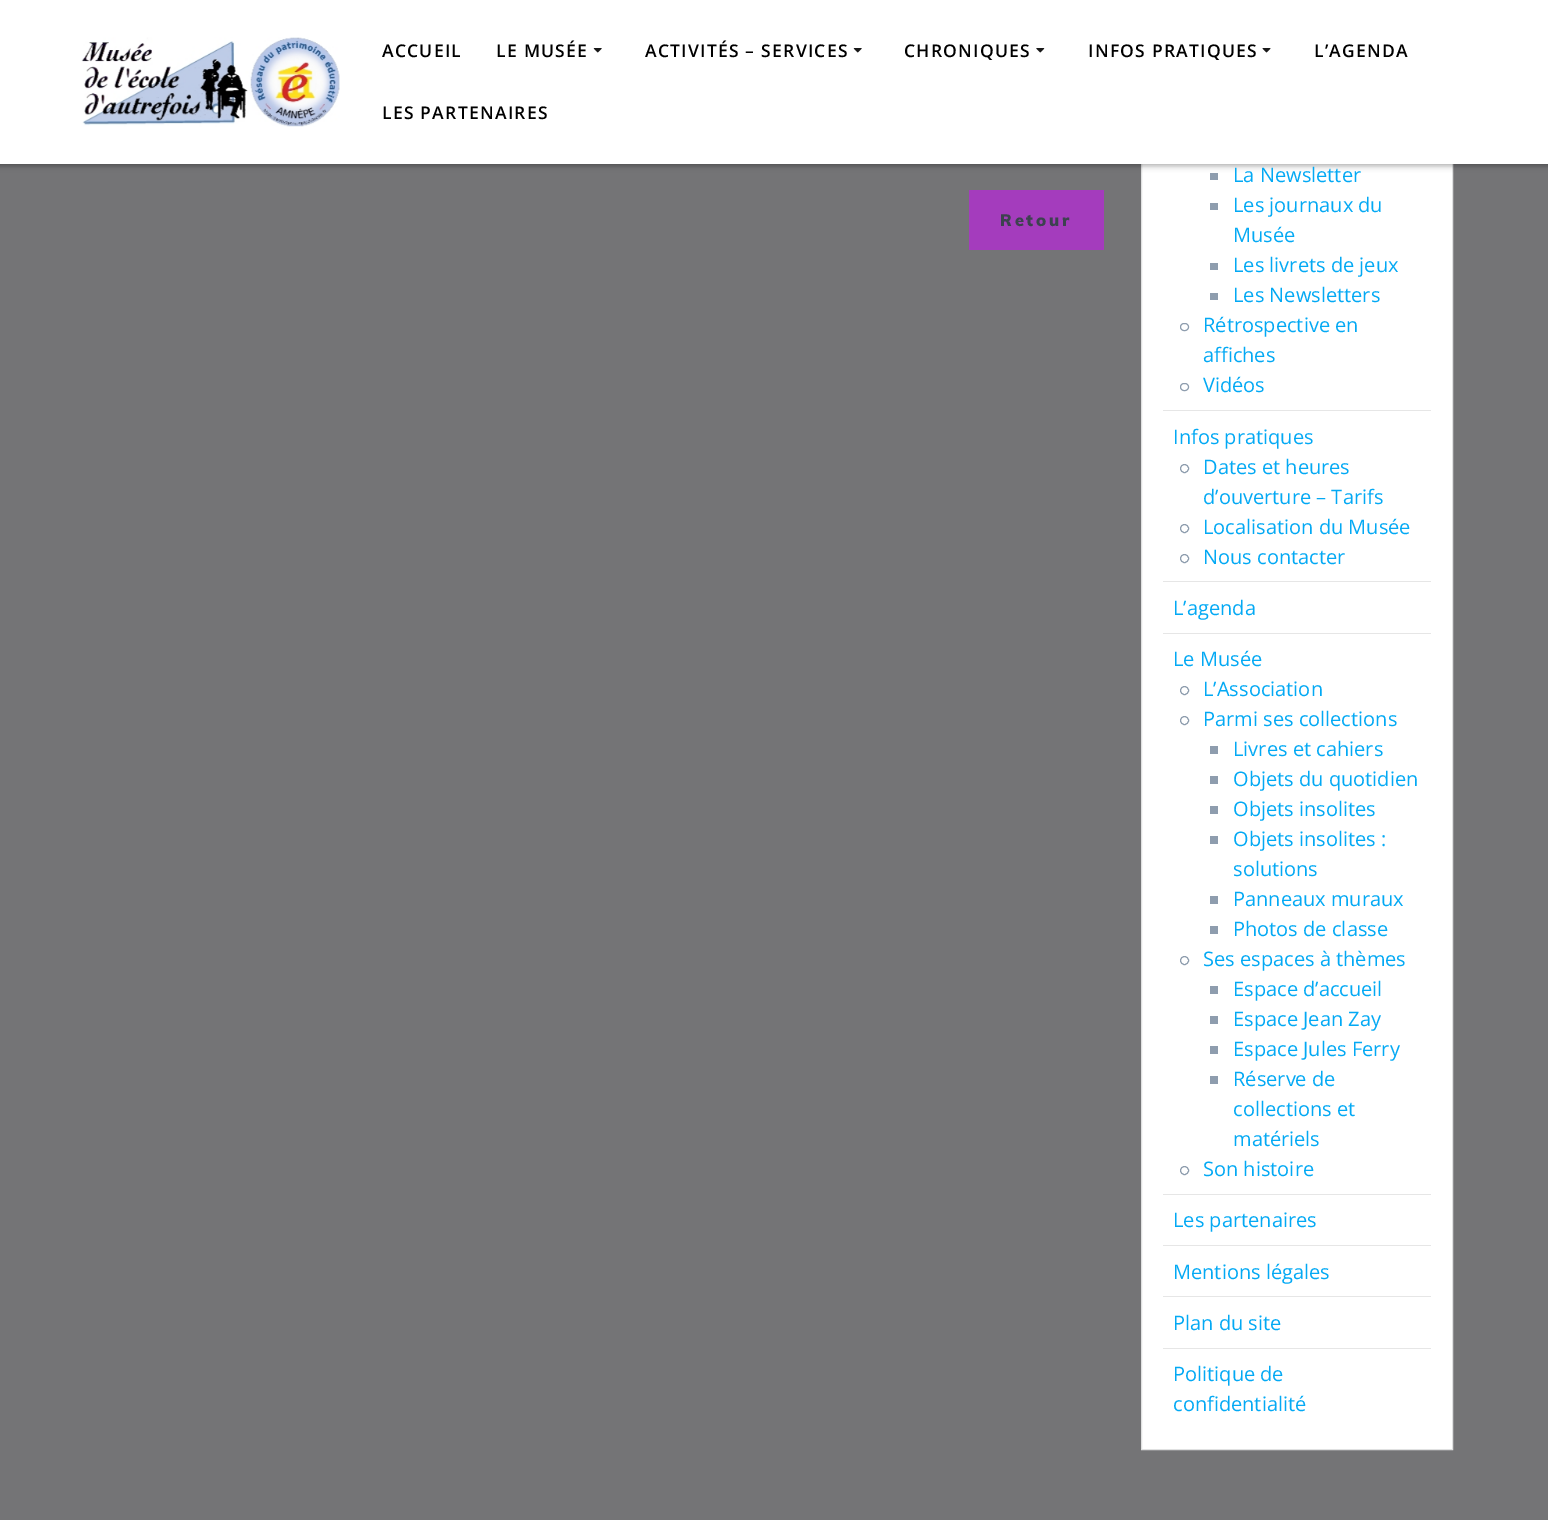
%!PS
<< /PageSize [1548 1520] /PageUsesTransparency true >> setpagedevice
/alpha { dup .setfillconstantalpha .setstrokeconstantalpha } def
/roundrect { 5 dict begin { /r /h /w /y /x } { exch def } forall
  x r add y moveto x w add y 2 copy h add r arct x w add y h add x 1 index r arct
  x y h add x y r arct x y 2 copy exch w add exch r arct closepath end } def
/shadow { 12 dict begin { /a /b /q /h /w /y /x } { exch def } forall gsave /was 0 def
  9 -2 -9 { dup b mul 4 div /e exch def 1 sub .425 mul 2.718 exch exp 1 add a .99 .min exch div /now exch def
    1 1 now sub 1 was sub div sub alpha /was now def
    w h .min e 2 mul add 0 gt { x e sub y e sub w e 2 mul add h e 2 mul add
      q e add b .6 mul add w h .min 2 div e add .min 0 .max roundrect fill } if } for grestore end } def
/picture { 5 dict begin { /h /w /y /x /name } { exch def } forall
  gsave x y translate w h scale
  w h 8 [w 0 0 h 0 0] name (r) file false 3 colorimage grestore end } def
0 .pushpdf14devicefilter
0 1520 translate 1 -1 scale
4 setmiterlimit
0.455 0.455 0.463 setrgbcolor
0 0 1548 1520 rectfill
1 setgray
1142 164 310 1285 rectfill
0.878 0.882 0.882 setrgbcolor
1141.5 -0.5 311 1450 rectstroke
0.557 0.616 0.682 setrgbcolor
1210 173 8 7 rectfill
0 setgray
-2 -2 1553 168 0 3 0.33 shadow
1 setgray
0 0 1548 164 rectfill
(img1.rgb) 81 37 259 90 picture
/OpenSans-SemiBold [17.5 0 0 -17.5 0 0] selectfont
0 setgray
382 57 moveto 1.25 0 (ACCUEIL) ashow
496 57 moveto 1.25 0 (LE MUSÉE) ashow
(img2.rgb) 593 48 9 5 picture
645 57 moveto 1.25 0 (ACTIVITÉS – SERVICES) ashow
(img2.rgb) 853 48 9 5 picture
904 57 moveto 1.25 0 (CHRONIQUES) ashow
(img3.rgb) 1036 48 9 5 picture
1088 57 moveto 1.25 0 (INFOS PRATIQUES) ashow
(img4.rgb) 1262 48 9 5 picture
1314 57 moveto 1.25 0 (L’AGENDA) ashow
382 119 moveto 1.25 0 (LES PARTENAIRES) ashow
0.643 0.235 0.741 setrgbcolor
969 190 135 60 rectfill
/Muli-Black [16.5 0 0 -16.5 0 0] selectfont
0.235 0.259 0.31 setrgbcolor
1000 226 moveto 2.75 0 (Retour) ashow
/OpenSans-Regular [20 0 0 -20 0 0] selectfont
0.012 0.663 0.957 setrgbcolor
1233 182 moveto (La Newsletter) show
0.557 0.616 0.682 setrgbcolor
1210 203 8 7 rectfill
0.012 0.663 0.957 setrgbcolor
1233 212 moveto (Les journaux du) show
1233 242 moveto (Musée) show
0.557 0.616 0.682 setrgbcolor
1210 263 8 7 rectfill
0.012 0.663 0.957 setrgbcolor
1233 272 moveto (Les livrets de jeux) show
0.557 0.616 0.682 setrgbcolor
1210 293 8 7 rectfill
0.012 0.663 0.957 setrgbcolor
1233 302 moveto (Les Newsletters) show
0.557 0.616 0.682 setrgbcolor
1180.5 323.5 8 7 3.5 roundrect stroke
0.012 0.663 0.957 setrgbcolor
1203 332 moveto (Rétrospective en) show
1203 362 moveto (affiches) show
0.557 0.616 0.682 setrgbcolor
1180.5 383.5 8 7 3.5 roundrect stroke
0.012 0.663 0.957 setrgbcolor
1203 392 moveto (Vidéos) show
0.902 setgray
1163 410 268 1 rectfill
0.012 0.663 0.957 setrgbcolor
1173 444 moveto (Infos pratiques) show
0.557 0.616 0.682 setrgbcolor
newpath 1184.5 468.5 4 0 360 arc closepath stroke
0.012 0.663 0.957 setrgbcolor
1203 474 moveto (Dates et heures) show
1203 504 moveto (d’ouverture – Tarifs) show
0.557 0.616 0.682 setrgbcolor
newpath 1184.5 528.5 4 0 360 arc closepath stroke
0.012 0.663 0.957 setrgbcolor
1203 534 moveto (Localisation du Musée) show
0.557 0.616 0.682 setrgbcolor
newpath 1184.5 558.5 4 0 360 arc closepath stroke
0.012 0.663 0.957 setrgbcolor
1203 564 moveto (Nous contacter) show
0.902 setgray
1163 581 268 1 rectfill
0.012 0.663 0.957 setrgbcolor
1173 615 moveto (L’agenda) show
0.902 setgray
1163 633 268 1 rectfill
0.012 0.663 0.957 setrgbcolor
1173 666 moveto (Le Musée) show
0.557 0.616 0.682 setrgbcolor
newpath 1184.5 690.5 4 0 360 arc closepath stroke
0.012 0.663 0.957 setrgbcolor
1203 696 moveto (L’Association) show
0.557 0.616 0.682 setrgbcolor
newpath 1184.5 720.5 4 0 360 arc closepath stroke
0.012 0.663 0.957 setrgbcolor
1203 726 moveto (Parmi ses collections) show
0.557 0.616 0.682 setrgbcolor
1210 746 8 8 rectfill
0.012 0.663 0.957 setrgbcolor
1233 756 moveto (Livres et cahiers) show
0.557 0.616 0.682 setrgbcolor
1210 776 8 8 rectfill
0.012 0.663 0.957 setrgbcolor
1233 786 moveto (Objets du quotidien) show
0.557 0.616 0.682 setrgbcolor
1210 806 8 8 rectfill
0.012 0.663 0.957 setrgbcolor
1233 816 moveto (Objets insolites) show
0.557 0.616 0.682 setrgbcolor
1210 836 8 8 rectfill
0.012 0.663 0.957 setrgbcolor
1233 846 moveto (Objets insolites :) show
1233 876 moveto (solutions) show
0.557 0.616 0.682 setrgbcolor
1210 896 8 8 rectfill
0.012 0.663 0.957 setrgbcolor
1233 906 moveto (Panneaux muraux) show
0.557 0.616 0.682 setrgbcolor
1210 926 8 8 rectfill
0.012 0.663 0.957 setrgbcolor
1233 936 moveto (Photos de classe) show
0.557 0.616 0.682 setrgbcolor
newpath 1184.5 960.5 4 0 360 arc closepath stroke
0.012 0.663 0.957 setrgbcolor
1203 966 moveto (Ses espaces à thèmes) show
0.557 0.616 0.682 setrgbcolor
1210 986 8 8 rectfill
0.012 0.663 0.957 setrgbcolor
1233 996 moveto (Espace d’accueil) show
0.557 0.616 0.682 setrgbcolor
1210 1016 8 8 rectfill
0.012 0.663 0.957 setrgbcolor
1233 1026 moveto (Espace Jean Zay) show
0.557 0.616 0.682 setrgbcolor
1210 1046 8 8 rectfill
0.012 0.663 0.957 setrgbcolor
1233 1056 moveto (Espace Jules Ferry) show
0.557 0.616 0.682 setrgbcolor
1210 1076 8 8 rectfill
0.012 0.663 0.957 setrgbcolor
1233 1086 moveto (Réserve de) show
1233 1116 moveto (collections et) show
1233 1146 moveto (matériels) show
0.557 0.616 0.682 setrgbcolor
newpath 1184.5 1170.5 4 0 360 arc closepath stroke
0.012 0.663 0.957 setrgbcolor
1203 1176 moveto (Son histoire) show
0.902 setgray
1163 1194 268 1 rectfill
0.012 0.663 0.957 setrgbcolor
1173 1227 moveto (Les partenaires) show
0.902 setgray
1163 1245 268 1 rectfill
0.012 0.663 0.957 setrgbcolor
1173 1279 moveto (Mentions légales) show
0.902 setgray
1163 1296 268 1 rectfill
0.012 0.663 0.957 setrgbcolor
1173 1330 moveto (Plan du site) show
0.902 setgray
1163 1348 268 1 rectfill
0.012 0.663 0.957 setrgbcolor
1173 1381 moveto (Politique de) show
1173 1411 moveto (confidentialité) show
.poppdf14devicefilter showpage
